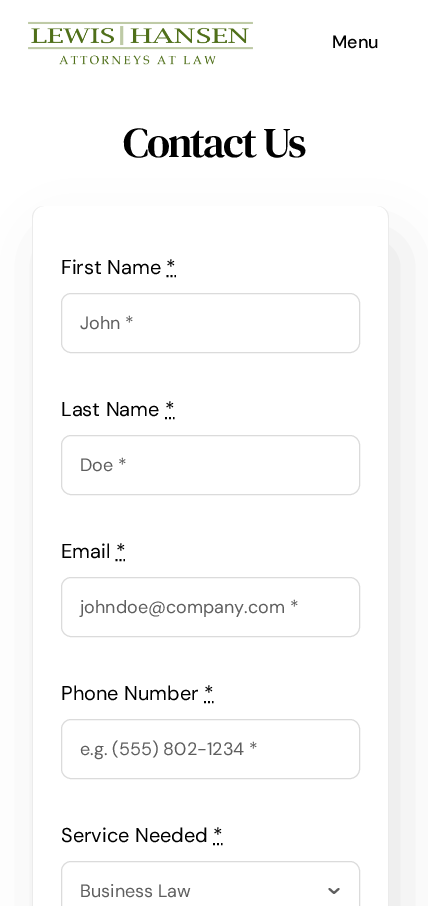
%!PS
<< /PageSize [428 906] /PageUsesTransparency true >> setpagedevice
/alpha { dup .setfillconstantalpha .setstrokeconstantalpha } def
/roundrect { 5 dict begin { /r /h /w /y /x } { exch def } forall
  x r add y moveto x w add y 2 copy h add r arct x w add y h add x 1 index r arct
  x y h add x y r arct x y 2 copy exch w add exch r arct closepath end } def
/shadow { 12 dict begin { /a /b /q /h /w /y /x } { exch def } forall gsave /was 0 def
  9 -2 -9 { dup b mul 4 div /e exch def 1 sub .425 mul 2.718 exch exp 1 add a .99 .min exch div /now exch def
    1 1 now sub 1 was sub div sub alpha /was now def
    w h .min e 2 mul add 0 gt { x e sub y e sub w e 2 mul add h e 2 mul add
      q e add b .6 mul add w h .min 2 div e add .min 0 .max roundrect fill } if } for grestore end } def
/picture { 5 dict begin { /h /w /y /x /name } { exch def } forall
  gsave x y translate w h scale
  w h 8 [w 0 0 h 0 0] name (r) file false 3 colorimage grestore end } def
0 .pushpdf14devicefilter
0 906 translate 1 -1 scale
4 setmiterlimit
1 setgray
0 0 428 906 rectfill
(img1.rgb) 28 21 225 44 picture
/DMSans-Medium [18 0 0 -18 0 0] selectfont
0 setgray
332 48 moveto (Menu) show
/DMSerifText-Regular [42.5 0 0 -42.5 0 0] selectfont
123 157 moveto -2 0 (Contact Us) ashow
gsave
newpath 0 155 moveto 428 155 lineto 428 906 lineto 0 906 lineto closepath 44 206 moveto 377 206 lineto 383.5 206 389 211.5 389 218 curveto 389 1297 lineto 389 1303.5 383.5 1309 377 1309 curveto 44 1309 lineto 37.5 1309 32 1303.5 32 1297 curveto 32 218 lineto 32 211.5 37.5 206 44 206 curveto closepath eoclip newpath
52 246 341 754 4 30 0.12 shadow
grestore
0.922 setgray
newpath 44 206 moveto 377 206 lineto 384 206 389 211 389 218 curveto 389 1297 lineto 389 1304 384 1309 377 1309 curveto 44 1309 lineto 37 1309 32 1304 32 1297 curveto 32 218 lineto 32 211 37 206 44 206 curveto closepath 44 206 moveto 377 206 lineto 383 206 388 211 388 218 curveto 388 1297 lineto 388 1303 383 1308 377 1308 curveto 44 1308 lineto 38 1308 33 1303 33 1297 curveto 33 218 lineto 33 211 38 206 44 206 curveto closepath eofill
/DMSans-Regular [20 0 0 -20 0 0] selectfont
0 setgray
61 274 moveto (First Name *) show
2 setlinewidth
newpath 166.5 276 moveto 168.5 276 lineto 170.5 276 moveto 172.5 276 lineto 174.5 276 moveto 176 276 lineto stroke
0.859 setgray
1 setlinewidth
61.5 293.5 298 59 9.5 roundrect stroke
/DMSans-Regular [18 0 0 -18 0 0] selectfont
0.369 setgray
80 329 moveto (John *) show
/DMSans-Regular [20 0 0 -20 0 0] selectfont
0 setgray
61 416 moveto (Last Name *) show
2 setlinewidth
newpath 165 418 moveto 167 418 lineto 169 418 moveto 171 418 lineto 173 418 moveto 174.5 418 lineto stroke
0.859 setgray
1 setlinewidth
61.5 435.5 298 59 9.5 roundrect stroke
/DMSans-Regular [18 0 0 -18 0 0] selectfont
0.369 setgray
80 471 moveto (Doe *) show
/DMSans-Regular [20 0 0 -20 0 0] selectfont
0 setgray
61 558 moveto (Email *) show
2 setlinewidth
newpath 115.5 560 moveto 117.5 560 lineto 119.5 560 moveto 121.5 560 lineto 123.5 560 moveto 125 560 lineto stroke
0.859 setgray
1 setlinewidth
61.5 577.5 298 59 9.5 roundrect stroke
/DMSans-Regular [18 0 0 -18 0 0] selectfont
0.369 setgray
80 613 moveto (johndoe@company.com *) show
/DMSans-Regular [20 0 0 -20 0 0] selectfont
0 setgray
61 700 moveto (Phone Number *) show
2 setlinewidth
newpath 204 702 moveto 206 702 lineto 208 702 moveto 210 702 lineto 212 702 moveto 213.5 702 lineto stroke
0.859 setgray
1 setlinewidth
61.5 719.5 298 59 9.5 roundrect stroke
/DMSans-Regular [18 0 0 -18 0 0] selectfont
0.369 setgray
80 755 moveto (e.g. \(555\) 802-1234 *) show
/DMSans-Regular [20 0 0 -20 0 0] selectfont
0 setgray
61 842 moveto (Service Needed *) show
2 setlinewidth
newpath 213 844 moveto 215 844 lineto 217 844 moveto 219 844 lineto 221 844 moveto 222.5 844 lineto stroke
0.859 setgray
1 setlinewidth
61.5 861.5 298 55 9.5 roundrect stroke
/DMSans-Regular [18 0 0 -18 0 0] selectfont
0.369 setgray
80 897 moveto (Business Law) show
2 setlinewidth
1 setlinecap
1 setlinejoin
newpath 329.5 889 moveto 334 893 lineto 338.5 889 lineto stroke
.poppdf14devicefilter showpage
